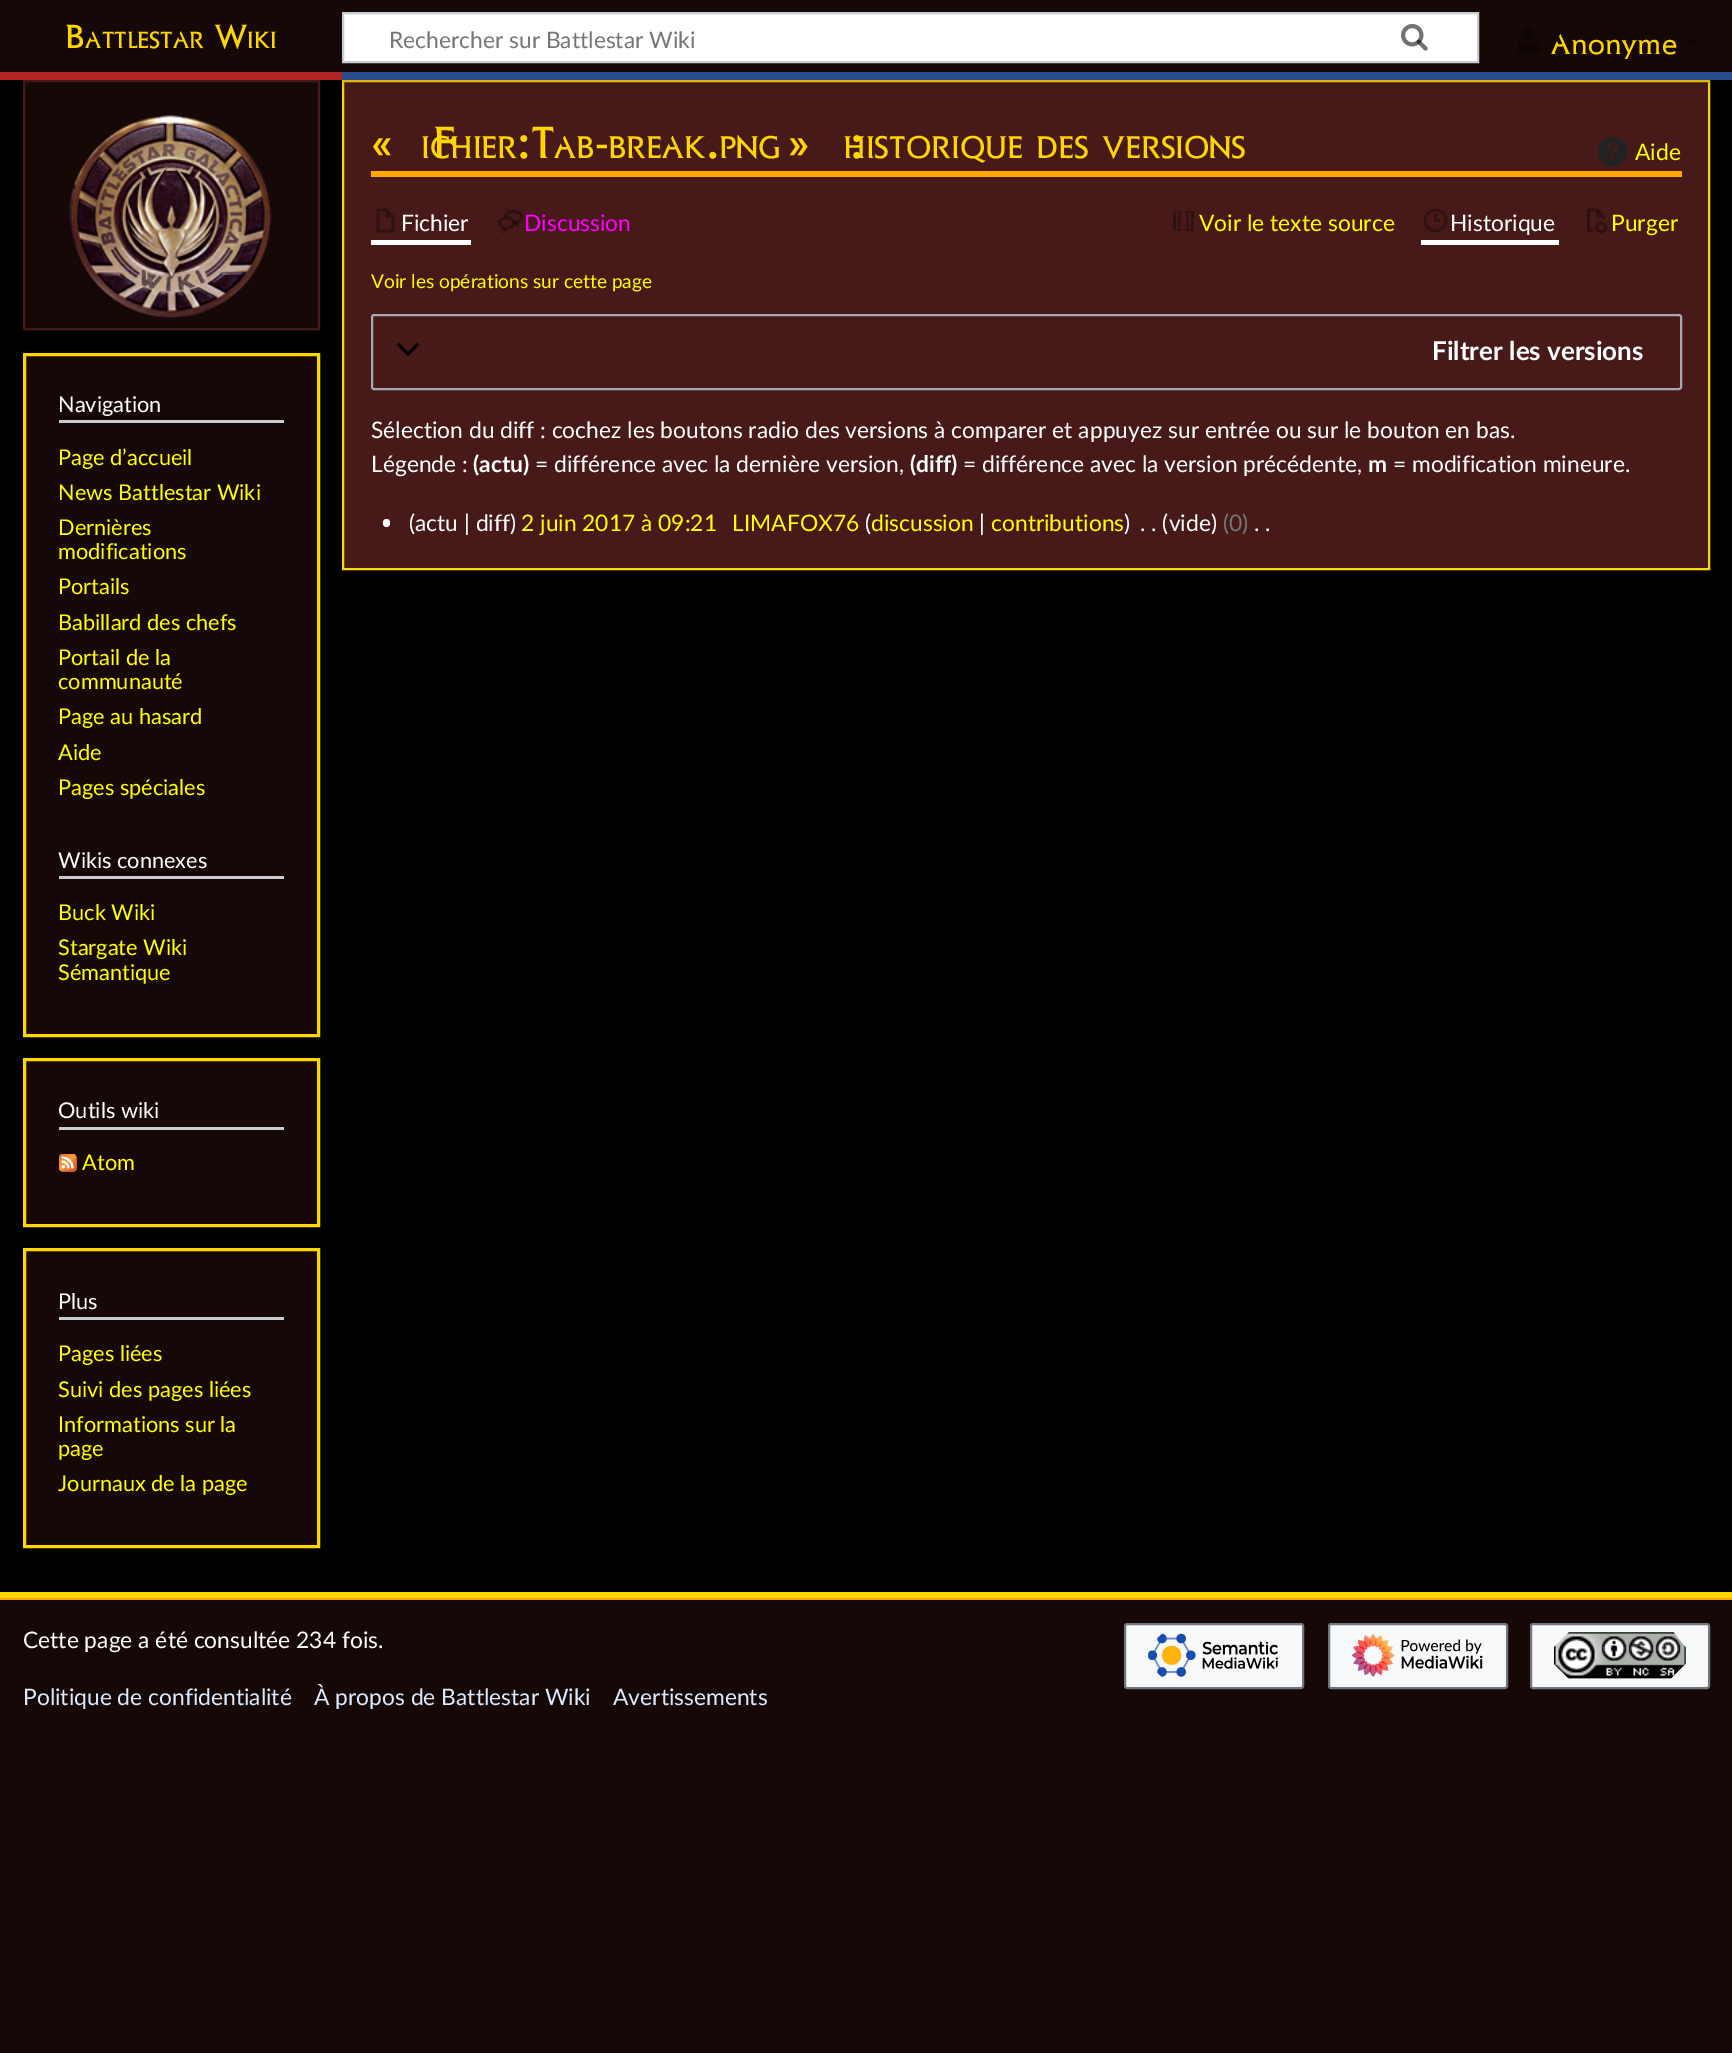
%!PS
<< /PageSize [1732 2053] /PageUsesTransparency true >> setpagedevice
/alpha { dup .setfillconstantalpha .setstrokeconstantalpha } def
/roundrect { 5 dict begin { /r /h /w /y /x } { exch def } forall
  x r add y moveto x w add y 2 copy h add r arct x w add y h add x 1 index r arct
  x y h add x y r arct x y 2 copy exch w add exch r arct closepath end } def
/shadow { 12 dict begin { /a /b /q /h /w /y /x } { exch def } forall gsave /was 0 def
  9 -2 -9 { dup b mul 4 div /e exch def 1 sub .425 mul 2.718 exch exp 1 add a .99 .min exch div /now exch def
    1 1 now sub 1 was sub div sub alpha /was now def
    w h .min e 2 mul add 0 gt { x e sub y e sub w e 2 mul add h e 2 mul add
      q e add b .6 mul add w h .min 2 div e add .min 0 .max roundrect fill } if } for grestore end } def
/picture { 5 dict begin { /h /w /y /x /name } { exch def } forall
  gsave x y translate w h scale
  w h 8 [w 0 0 h 0 0] name (r) file false 3 colorimage grestore end } def
0 .pushpdf14devicefilter
0 2053 translate 1 -1 scale
4 setmiterlimit
0.086 0.031 0.027 setrgbcolor
0 0 1732 2053 rectfill
/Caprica-Regular [34 0 0 -34 0 0] selectfont
1 0.843 0 setrgbcolor
65 48 moveto (B) show
/Caprica-Regular [24 0 0 -24 0 0] selectfont
85 48 moveto (ATTLESTAR) show
/Caprica-Regular [34 0 0 -34 0 0] selectfont
214 48 moveto (W) show
/Caprica-Regular [24 0 0 -24 0 0] selectfont
247 48 moveto (IKI) show
1 setgray
newpath 343 13 moveto 1478 13 lineto 1478 62 lineto 343 62 lineto closepath gsave fill grestore
0.784 0.8 0.82 setrgbcolor
2 setlinewidth
stroke
(img1.rgb) 1401 24 27 27 picture
/Lato-Regular [22.8 0 0 -22.8 0 0] selectfont
0.463 setgray
389 48 moveto (Rechercher sur Battlestar Wiki) show
(img2.rgb) 1401 24 27 27 picture
(img3.rgb) 1517 27 23 27 picture
gsave
1551 33 126 26 rectclip
/Caprica-Regular [28.5 0 0 -28.5 0 0] selectfont
1 0.843 0 setrgbcolor
1551 54 moveto (Anonyme) show
grestore
0.059 0.02 0.02 setrgbcolor
newpath 1700 39 moveto 1693 46.5 lineto 1685 39 lineto closepath fill
0 setgray
0 80 1732 1512 rectfill
0.278 0.098 0.098 setrgbcolor
newpath 343 81 moveto 1709 81 lineto 1709 569 lineto 343 569 lineto closepath gsave fill grestore
1 0.843 0 setrgbcolor
stroke
0.086 0.031 0.027 setrgbcolor
newpath 24 81 moveto 319 81 lineto 319 329 lineto 24 329 lineto closepath gsave fill grestore
0.278 0.098 0.098 setrgbcolor
stroke
0 setgray
0 72 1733 8 0 1.5 0.2 shadow
-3 74 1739 13 0 2 0.07 shadow
0.702 0.141 0.141 setrgbcolor
0 72 342 8 rectfill
0.165 0.294 0.553 setrgbcolor
342 72 1390 8 rectfill
1 0.843 0 setrgbcolor
0 1592 1732 6 rectfill
1 0.647 0 setrgbcolor
371 171 1311 6 rectfill
/Caprica-Regular [46 0 0 -46 0 0] selectfont
1 0.843 0 setrgbcolor
371 158 moveto (« F) show
/Caprica-Regular [32 0 0 -32 0 0] selectfont
421 158 moveto (ICHIER) show
/Caprica-Regular [46 0 0 -46 0 0] selectfont
517 158 moveto (:T) show
/Caprica-Regular [32 0 0 -32 0 0] selectfont
554 158 moveto (AB) show
/Caprica-Regular [46 0 0 -46 0 0] selectfont
595 158 moveto (-) show
/Caprica-Regular [32 0 0 -32 0 0] selectfont
608 158 moveto (BREAK) show
719 158 moveto (PNG) show
/Caprica-Regular [46 0 0 -46 0 0] selectfont
788 158 moveto (» :) show
/Caprica-Regular [32 0 0 -32 0 0] selectfont
843 158 moveto (HISTORIQUE) show
1036 158 moveto (DES) show
1102 158 moveto (VERSIONS) show
/Caprica-Regular [46 0 0 -46 0 0] selectfont
706 158 moveto (.) show
(img4.rgb) 1598 137 30 30 picture
/Lato-Regular [22.8 0 0 -22.8 0 0] selectfont
1 1 0 setrgbcolor
1635 160 moveto (Aide) show
1 setgray
371 240 100 5 rectfill
(img5.rgb) 376 208 19 25 picture
401 231 moveto (Fichier) show
(img6.rgb) 498 209 26 25 picture
1 0 1 setrgbcolor
524 231 moveto (Discussion) show
(img7.rgb) 1173 211 21 20 picture
1 1 0 setrgbcolor
1199 231 moveto (Voir le texte source) show
1 setgray
1421 240 138 5 rectfill
(img8.rgb) 1423 208 25 25 picture
1450 231 moveto (Historique) show
(img9.rgb) 1587 208 21 26 picture
1 1 0 setrgbcolor
1611 231 moveto (Purger) show
/Lato-Regular [19.1 0 0 -19.1 0 0] selectfont
371 288 moveto (Voir les opérations sur cette page) show
0.635 0.663 0.694 setrgbcolor
372 315 1309 74 2 roundrect stroke
0 setgray
newpath 417 343 moveto 408 352 lineto 399 343 lineto 397 345 lineto 408 356 lineto 419 345 lineto closepath fill
/Lato-Bold [26 0 0 -26 0 0] selectfont
1 setgray
1432 360 moveto (Filtrer les versions) show
/Lato-Regular [22.8 0 0 -22.8 0 0] selectfont
371 438 moveto (Sélection du diff : cochez les boutons radio des versions à comparer et appuyez sur entrée ou sur le bouton en bas.) show
371 472 moveto (Légende :) show
/Lato-Bold [22.8 0 0 -22.8 0 0] selectfont
473 472 moveto (\(actu\)) show
/Lato-Regular [22.8 0 0 -22.8 0 0] selectfont
535 472 moveto (= différence avec la dernière version,) show
/Lato-Bold [22.8 0 0 -22.8 0 0] selectfont
910 472 moveto (\(diff\)) show
/Lato-Regular [22.8 0 0 -22.8 0 0] selectfont
963 472 moveto (= différence avec la version précédente,) show
/Lato-Bold [22.8 0 0 -22.8 0 0] selectfont
1368 472 moveto (m) show
/Lato-Regular [22.8 0 0 -22.8 0 0] selectfont
1393 472 moveto (= modification mineure.) show
383 519 7 8 3.5 roundrect fill
409 531 moveto (\(actu | diff\)) show
1 1 0 setrgbcolor
521 531 moveto (2 juin 2017 à 09:21) show
732 531 moveto (LIMAFOX76) show
1 setgray
865 531 moveto (\() show
1 1 0 setrgbcolor
871 531 moveto (discussion) show
1 setgray
979 531 moveto (|) show
1 1 0 setrgbcolor
991 531 moveto (contributions) show
1 setgray
1124 531 moveto (\)) show
1140 531 moveto (. . \(vide\)) show
0.463 setgray
1223 531 moveto (\(0\)) show
1 setgray
1254 531 moveto (. .) show
(img10.rgb) 69 115 203 203 picture
0.086 0.031 0.027 setrgbcolor
newpath 24.5 354.5 moveto 318.5 354.5 lineto 318.5 1035.5 lineto 24.5 1035.5 lineto closepath gsave fill grestore
1 0.843 0 setrgbcolor
3 setlinewidth
stroke
0.784 0.8 0.82 setrgbcolor
59 420 225 3 rectfill
/Lato-Regular [21.75 0 0 -21.75 0 0] selectfont
1 setgray
58 412 moveto (Navigation) show
1 1 0 setrgbcolor
58 465 moveto (Page d’accueil) show
58 500 moveto (News Battlestar Wiki) show
58 535 moveto (Dernières) show
58 559 moveto (modifications) show
58 594 moveto (Portails) show
58 630 moveto (Babillard des chefs) show
58 665 moveto (Portail de la) show
58 689 moveto (communauté) show
58 724 moveto (Page au hasard) show
58 760 moveto (Aide) show
58 795 moveto (Pages spéciales) show
0.784 0.8 0.82 setrgbcolor
59 876 225 3 rectfill
1 setgray
58 868 moveto (Wikis connexes) show
1 1 0 setrgbcolor
58 920 moveto (Buck Wiki) show
58 955 moveto (Stargate Wiki) show
58 980 moveto (Sémantique) show
0.086 0.031 0.027 setrgbcolor
newpath 24.5 1059.5 moveto 318.5 1059.5 lineto 318.5 1225.5 lineto 24.5 1225.5 lineto closepath gsave fill grestore
1 0.843 0 setrgbcolor
stroke
0.784 0.8 0.82 setrgbcolor
59 1127 225 3 rectfill
1 setgray
58 1118 moveto (Outils wiki) show
(img11.rgb) 59 1154 18 18 picture
1 1 0 setrgbcolor
82 1170 moveto (Atom) show
0.086 0.031 0.027 setrgbcolor
newpath 24.5 1249.5 moveto 318.5 1249.5 lineto 318.5 1546.5 lineto 24.5 1546.5 lineto closepath gsave fill grestore
1 0.843 0 setrgbcolor
stroke
0.784 0.8 0.82 setrgbcolor
59 1317 225 3 rectfill
1 setgray
58 1309 moveto (Plus) show
1 1 0 setrgbcolor
58 1361 moveto (Pages liées) show
58 1397 moveto (Suivi des pages liées) show
58 1432 moveto (Informations sur la) show
58 1456 moveto (page) show
58 1491 moveto (Journaux de la page) show
1 0.647 0 setrgbcolor
0 1598 1732 2 rectfill
/Lato-Regular [22.8 0 0 -22.8 0 0] selectfont
1 setgray
23 1648 moveto (Cette page a été consultée 234 fois.) show
0.859 0.918 1 setrgbcolor
23 1705 moveto (Politique de confidentialité) show
314 1705 moveto (À propos de Battlestar Wiki) show
613 1705 moveto (Avertissements) show
0.973 0.976 0.98 setrgbcolor
1125 1624 178 64 2 roundrect gsave fill grestore
0.447 0.467 0.49 setrgbcolor
2 setlinewidth
stroke
(img12.rgb) 1148 1633 130 44 picture
0.973 0.976 0.98 setrgbcolor
1329 1624 178 64 2 roundrect gsave fill grestore
0.447 0.467 0.49 setrgbcolor
stroke
(img13.rgb) 1352 1633 131 44 picture
0.973 0.976 0.98 setrgbcolor
1531 1624 178 64 2 roundrect gsave fill grestore
0.447 0.467 0.49 setrgbcolor
stroke
(img14.rgb) 1554 1632 132 47 picture
.poppdf14devicefilter showpage
